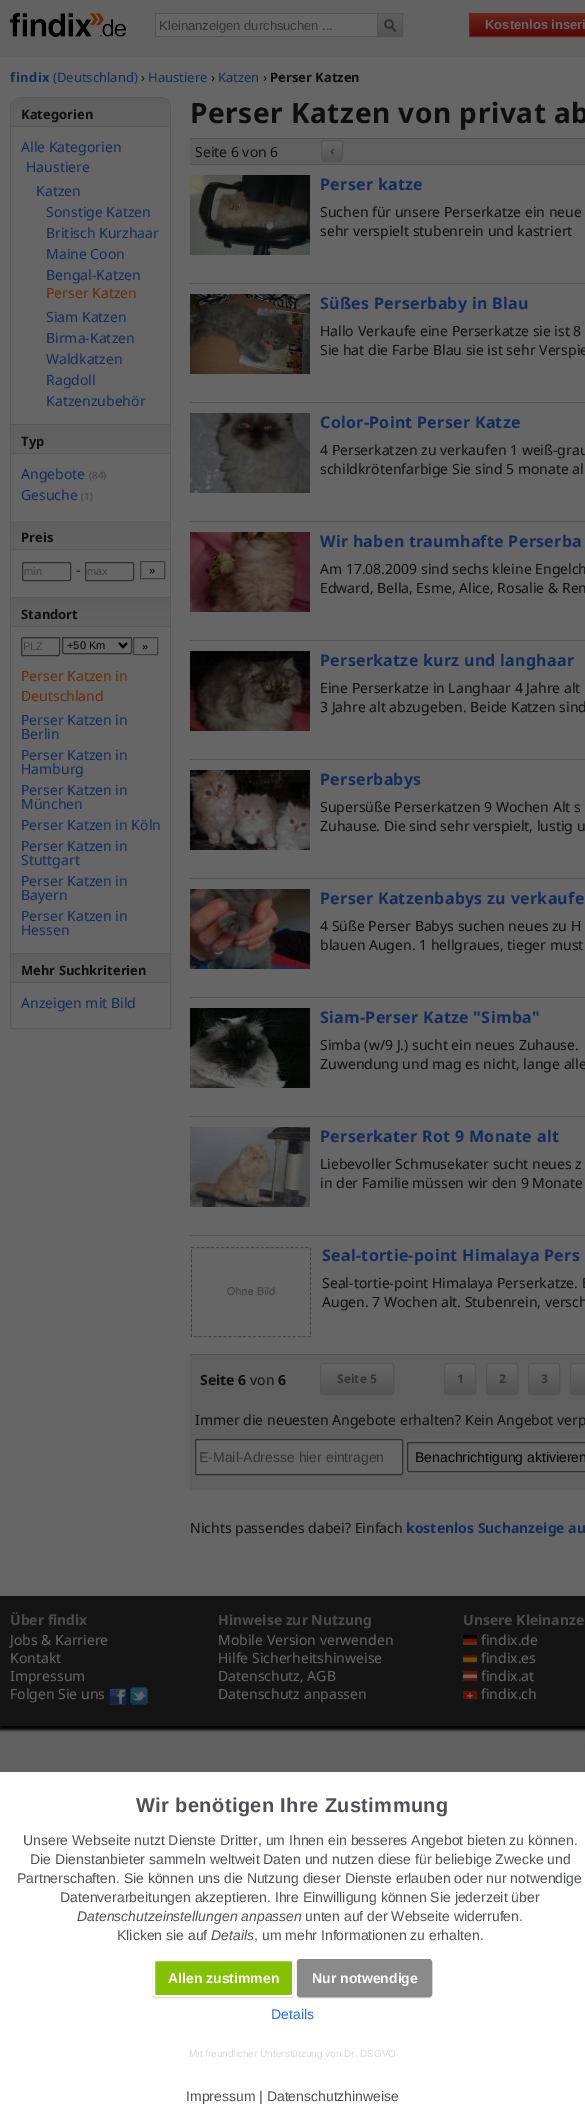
%!PS
<< /PageSize [585 2106] /PageUsesTransparency true >> setpagedevice
/alpha { dup .setfillconstantalpha .setstrokeconstantalpha } def
/roundrect { 5 dict begin { /r /h /w /y /x } { exch def } forall
  x r add y moveto x w add y 2 copy h add r arct x w add y h add x 1 index r arct
  x y h add x y r arct x y 2 copy exch w add exch r arct closepath end } def
/shadow { 12 dict begin { /a /b /q /h /w /y /x } { exch def } forall gsave /was 0 def
  9 -2 -9 { dup b mul 4 div /e exch def 1 sub .425 mul 2.718 exch exp 1 add a .99 .min exch div /now exch def
    1 1 now sub 1 was sub div sub alpha /was now def
    w h .min e 2 mul add 0 gt { x e sub y e sub w e 2 mul add h e 2 mul add
      q e add b .6 mul add w h .min 2 div e add .min 0 .max roundrect fill } if } for grestore end } def
/picture { 5 dict begin { /h /w /y /x /name } { exch def } forall
  gsave x y translate w h scale
  w h 8 [w 0 0 h 0 0] name (r) file false 3 colorimage grestore end } def
0 .pushpdf14devicefilter
0 2106 translate 1 -1 scale
4 setmiterlimit
1 setgray
0 0 585 2106 rectfill
(img1.rgb) 0 1726 585 46 picture
0 setgray
0 -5 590 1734 0 1.5 1 shadow
0.4 setgray
0 57 585 1539 rectfill
0.384 setgray
0 0 585 57 rectfill
(img2.rgb) 10 13 80 24 picture
(img3.rgb) 90 13 36 24 picture
0.4 setgray
156 14 221 22 rectfill
0.322 setgray
155 13 222 1 rectfill
155 36 222 1 rectfill
155 13 1 24 rectfill
/LiberationSans-Regular [13 0 0 -13 0 0] selectfont
0.2 0.196 0.196 setrgbcolor
159 30 moveto (Kleinanzeigen durchsuchen ...) show
gsave newpath 378 14 moveto 402 14 lineto 402 36 lineto 378 36 lineto closepath clip newpath
<< /ShadingType 2 /ColorSpace /DeviceRGB /Coords [378 14 378 36] /Extend [true true] /Function << /FunctionType 2 /Domain [0 1] /C0 [0.373 0.373 0.373] /C1 [0.322 0.322 0.322] /N 1 >> >> shfill grestore
0.322 setgray
377.5 13.5 25 23 rectstroke
(img4.rgb) 384 19 13 13 picture
gsave newpath 470 14 moveto 585 14 lineto 585 36 lineto 470 36 lineto closepath clip newpath
<< /ShadingType 2 /ColorSpace /DeviceRGB /Coords [470 14 470 36] /Extend [true true] /Function << /FunctionType 2 /Domain [0 1] /C0 [0.4 0.141 0.11] /C1 [0.322 0.031 0.031] /N 1 >> >> shfill grestore
0.4 0.141 0.11 setrgbcolor
469.5 13.5 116 23 rectstroke
/LiberationSans-Bold [13 0 0 -13 0 0] selectfont
0.4 setgray
485 29 moveto (Kostenlos inseri) show
/NotoSans-Bold [13 0 0 -13 0 0] selectfont
0.067 0.173 0.357 setrgbcolor
10 82 moveto 0.5 0 (findix) ashow
/NotoSans-Regular [13 0 0 -13 0 0] selectfont
53 82 moveto (\(Deutschland\)) show
0.055 setgray
141 82 moveto (›) show
0.067 0.173 0.357 setrgbcolor
148 82 moveto (Haustiere) show
0.055 setgray
211 82 moveto (›) show
0.067 0.173 0.357 setrgbcolor
218 82 moveto (Katzen) show
0.055 setgray
263 82 moveto (›) show
/NotoSans-Bold [13 0 0 -13 0 0] selectfont
270 82 moveto (Perser Katzen) show
0.345 setgray
20 97 142 1 rectfill
170 97 1 327 rectfill
10 97 1 327 rectfill
gsave newpath 11 98 moveto 170 98 lineto 170 126 lineto 11 126 lineto closepath clip newpath
<< /ShadingType 2 /ColorSpace /DeviceRGB /Coords [11 98 11 154] /Extend [true true] /Function << /FunctionType 2 /Domain [0 1] /C0 [0.373 0.373 0.373] /C1 [0.4 0.4 0.4] /N 1 >> >> shfill grestore
(img5.rgb) 10 97 10 8 picture
(img6.rgb) 162 97 9 8 picture
11 126 159 1 rectfill
0.055 setgray
21 119 moveto (Kategorien) show
/NotoSans-Regular [14 0 0 -14 0 0] selectfont
0.067 0.173 0.357 setrgbcolor
21 152 moveto (Alle Kategorien) show
26 172 moveto (Haustiere) show
36 196 moveto (Katzen) show
46 217 moveto (Sonstige Katzen) show
46 238 moveto (Britisch Kurzhaar) show
46 259 moveto (Maine Coon) show
46 280 moveto (Bengal-Katzen) show
0.4 0.169 0.004 setrgbcolor
46 298 moveto (Perser Katzen) show
0.067 0.173 0.357 setrgbcolor
46 322 moveto (Siam Katzen) show
46 343 moveto (Birma-Katzen) show
46 364 moveto (Waldkatzen) show
46 385 moveto (Ragdoll) show
46 406 moveto (Katzenzubehör) show
0.345 setgray
10 424 161 1 rectfill
170 424 1 173 rectfill
10 424 1 173 rectfill
gsave newpath 11 425 moveto 170 425 lineto 170 453 lineto 11 453 lineto closepath clip newpath
<< /ShadingType 2 /ColorSpace /DeviceRGB /Coords [11 425 11 481] /Extend [true true] /Function << /FunctionType 2 /Domain [0 1] /C0 [0.373 0.373 0.373] /C1 [0.4 0.4 0.4] /N 1 >> >> shfill grestore
11 453 159 1 rectfill
/NotoSans-Bold [13 0 0 -13 0 0] selectfont
0.055 setgray
21 446 moveto (Typ) show
/NotoSans-Regular [14 0 0 -14 0 0] selectfont
0.067 0.173 0.357 setrgbcolor
21 479 moveto (Angebote) show
/NotoSans-Regular [10 0 0 -10 0 0] selectfont
0.239 setgray
89 479 moveto (\(84\)) show
/NotoSans-Regular [14 0 0 -14 0 0] selectfont
0.067 0.173 0.357 setrgbcolor
21 500 moveto (Gesuche) show
/NotoSans-Regular [10 0 0 -10 0 0] selectfont
0.239 setgray
81 500 moveto (\(1\)) show
gsave newpath 11 521 moveto 170 521 lineto 170 549 lineto 11 549 lineto closepath clip newpath
<< /ShadingType 2 /ColorSpace /DeviceRGB /Coords [11 521 11 577] /Extend [true true] /Function << /FunctionType 2 /Domain [0 1] /C0 [0.373 0.373 0.373] /C1 [0.4 0.4 0.4] /N 1 >> >> shfill grestore
0.345 setgray
11 549 159 1 rectfill
/NotoSans-Bold [13 0 0 -13 0 0] selectfont
0.055 setgray
21 542 moveto (Preis) show
0.184 setgray
22.5 562.5 48 18 1.5 roundrect stroke
/LiberationSans-Regular [11 0 0 -11 0 0] selectfont
0.239 setgray
24 575 moveto (min) show
/NotoSans-Regular [14 0 0 -14 0 0] selectfont
0.055 setgray
76 575 moveto (-) show
0.184 setgray
85.5 562.5 48 18 1.5 roundrect stroke
/LiberationSans-Regular [11 0 0 -11 0 0] selectfont
0.239 setgray
87 575 moveto (max) show
140.5 561.5 24 17 rectstroke
0 setgray
149 574 moveto (») show
0.345 setgray
10 597 161 1 rectfill
170 597 1 356 rectfill
10 597 1 356 rectfill
gsave newpath 11 598 moveto 170 598 lineto 170 626 lineto 11 626 lineto closepath clip newpath
<< /ShadingType 2 /ColorSpace /DeviceRGB /Coords [11 598 11 654] /Extend [true true] /Function << /FunctionType 2 /Domain [0 1] /C0 [0.373 0.373 0.373] /C1 [0.4 0.4 0.4] /N 1 >> >> shfill grestore
11 626 159 1 rectfill
/NotoSans-Bold [13 0 0 -13 0 0] selectfont
0.055 setgray
21 619 moveto (Standort) show
0.184 setgray
21.5 637.5 38 18 1.5 roundrect stroke
/LiberationSans-Regular [11 0 0 -11 0 0] selectfont
0.239 setgray
23 650 moveto (PLZ) show
0.184 setgray
62.5 637.5 69 16 1.5 roundrect stroke
0 setgray
2 setlinewidth
newpath 119 643 moveto 123 647 lineto 127 643 lineto stroke
67 649 moveto (+50 Km) show
0.239 setgray
1 setlinewidth
133.5 637.5 24 17 rectstroke
0 setgray
142 650 moveto (») show
/NotoSans-Regular [14 0 0 -14 0 0] selectfont
0.4 0.169 0.004 setrgbcolor
21 681 moveto (Perser Katzen in) show
21 701 moveto (Deutschland) show
0.067 0.173 0.357 setrgbcolor
21 725 moveto (Perser Katzen in) show
21 739 moveto (Berlin) show
21 760 moveto (Perser Katzen in) show
21 774 moveto (Hamburg) show
21 795 moveto (Perser Katzen in) show
21 809 moveto (München) show
21 830 moveto (Perser Katzen in Köln) show
21 851 moveto (Perser Katzen in) show
21 865 moveto (Stuttgart) show
21 886 moveto (Perser Katzen in) show
21 900 moveto (Bayern) show
21 921 moveto (Perser Katzen in) show
21 935 moveto (Hessen) show
0.345 setgray
10.5 953.5 160 75 rectstroke
gsave newpath 11 954 moveto 170 954 lineto 170 982 lineto 11 982 lineto closepath clip newpath
<< /ShadingType 2 /ColorSpace /DeviceRGB /Coords [11 954 11 1010] /Extend [true true] /Function << /FunctionType 2 /Domain [0 1] /C0 [0.373 0.373 0.373] /C1 [0.4 0.4 0.4] /N 1 >> >> shfill grestore
11 982 159 1 rectfill
/NotoSans-Bold [13 0 0 -13 0 0] selectfont
0.055 setgray
21 975 moveto (Mehr Suchkriterien) show
/NotoSans-Regular [14 0 0 -14 0 0] selectfont
0.067 0.173 0.357 setrgbcolor
21 1008 moveto (Anzeigen mit Bild) show
/NotoSans-Bold [28 0 0 -28 0 0] selectfont
0.055 setgray
190 123 moveto 0.55 0 (Perser Katzen von privat ab) ashow
0.373 setgray
190 139 395 25 rectfill
0.322 setgray
190 138 395 1 rectfill
190 164 395 1 rectfill
/NotoSans-Regular [14 0 0 -14 0 0] selectfont
0.055 setgray
195 157 moveto (Seite 6 von 6) show
gsave
321 140 22 22 3 roundrect clip newpath
gsave newpath 321 141 moveto 343 141 lineto 343 161 lineto 321 161 lineto closepath clip newpath
<< /ShadingType 2 /ColorSpace /DeviceRGB /Coords [322 141 322 161] /Extend [true true] /Function << /FunctionType 2 /Domain [0 1] /C0 [0.4 0.4 0.4] /C1 [0.329 0.329 0.329] /N 1 >> >> shfill grestore
grestore
0.329 setgray
321.5 140.5 21 21 2.5 roundrect stroke
/NotoSans-Bold [12 0 0 -12 0 0] selectfont
0.2 0.196 0.196 setrgbcolor
330 155 moveto (‹) show
0.322 setgray
190 283 395 1 rectfill
(img7.rgb) 190 175 120 80 picture
/NotoSans-Bold [16 0 0 -16 0 0] selectfont
0.067 0.173 0.357 setrgbcolor
320 190 moveto 0.3 0 (Perser katze) ashow
/NotoSans-Regular [14 0 0 -14 0 0] selectfont
0.055 setgray
320 217 moveto (Suchen für unsere Perserkatze ein neue) show
320 236 moveto (sehr verspielt stubenrein und kastriert) show
0.322 setgray
190 402 395 1 rectfill
(img8.rgb) 190 294 120 80 picture
/NotoSans-Bold [16 0 0 -16 0 0] selectfont
0.067 0.173 0.357 setrgbcolor
320 309 moveto 0.3 0 (Süßes Perserbaby in Blau) ashow
/NotoSans-Regular [14 0 0 -14 0 0] selectfont
0.055 setgray
320 336 moveto (Hallo Verkaufe eine Perserkatze sie ist 8) show
320 355 moveto (Sie hat die Farbe Blau sie ist sehr Verspie) show
0.322 setgray
190 521 395 1 rectfill
(img9.rgb) 190 413 120 80 picture
/NotoSans-Bold [16 0 0 -16 0 0] selectfont
0.067 0.173 0.357 setrgbcolor
320 428 moveto 0.3 0 (Color-Point Perser Katze) ashow
/NotoSans-Regular [14 0 0 -14 0 0] selectfont
0.055 setgray
320 455 moveto (4 Perserkatzen zu verkaufen 1 weiß-grau) show
320 474 moveto (schildkrötenfarbige Sie sind 5 monate al) show
0.322 setgray
190 640 395 1 rectfill
(img10.rgb) 190 532 120 80 picture
/NotoSans-Bold [16 0 0 -16 0 0] selectfont
0.067 0.173 0.357 setrgbcolor
320 547 moveto 0.3 0 (Wir haben traumhafte Perserba) ashow
/NotoSans-Regular [14 0 0 -14 0 0] selectfont
0.055 setgray
320 574 moveto (Am 17.08.2009 sind sechs kleine Engelch) show
320 593 moveto (Edward, Bella, Esme, Alice, Rosalie & Ren) show
0.322 setgray
190 759 395 1 rectfill
(img11.rgb) 190 651 120 80 picture
/NotoSans-Bold [16 0 0 -16 0 0] selectfont
0.067 0.173 0.357 setrgbcolor
320 666 moveto 0.3 0 (Perserkatze kurz und langhaar) ashow
/NotoSans-Regular [14 0 0 -14 0 0] selectfont
0.055 setgray
320 693 moveto (Eine Perserkatze in Langhaar 4 Jahre alt) show
320 712 moveto (3 Jahre alt abzugeben. Beide Katzen sind) show
0.322 setgray
190 878 395 1 rectfill
(img12.rgb) 190 770 120 80 picture
/NotoSans-Bold [16 0 0 -16 0 0] selectfont
0.067 0.173 0.357 setrgbcolor
320 785 moveto 0.3 0 (Perserbabys) ashow
/NotoSans-Regular [14 0 0 -14 0 0] selectfont
0.055 setgray
320 812 moveto (Supersüße Perserkatzen 9 Wochen Alt s) show
320 831 moveto (Zuhause. Die sind sehr verspielt, lustig u) show
0.322 setgray
190 997 395 1 rectfill
(img13.rgb) 190 889 120 80 picture
/NotoSans-Bold [16 0 0 -16 0 0] selectfont
0.067 0.173 0.357 setrgbcolor
320 904 moveto 0.3 0 (Perser Katzenbabys zu verkaufe) ashow
/NotoSans-Regular [14 0 0 -14 0 0] selectfont
0.055 setgray
320 931 moveto (4 Süße Perser Babys suchen neues zu H) show
320 950 moveto (blauen Augen. 1 hellgraues, tieger must) show
0.322 setgray
190 1116 395 1 rectfill
(img14.rgb) 190 1008 120 80 picture
/NotoSans-Bold [16 0 0 -16 0 0] selectfont
0.067 0.173 0.357 setrgbcolor
320 1023 moveto 0.3 0 (Siam-Perser Katze "Simba") ashow
/NotoSans-Regular [14 0 0 -14 0 0] selectfont
0.055 setgray
320 1050 moveto (Simba \(w/9 J.\) sucht ein neues Zuhause.) show
320 1069 moveto (Zuwendung und mag es nicht, lange alle) show
0.322 setgray
190 1235 395 1 rectfill
(img15.rgb) 190 1127 120 80 picture
/NotoSans-Bold [16 0 0 -16 0 0] selectfont
0.067 0.173 0.357 setrgbcolor
320 1142 moveto 0.3 0 (Perserkater Rot 9 Monate alt) ashow
/NotoSans-Regular [14 0 0 -14 0 0] selectfont
0.055 setgray
320 1169 moveto (Liebevoller Schmusekater sucht neues z) show
320 1188 moveto (in der Familie müssen wir den 9 Monate) show
0.322 setgray
190 1354 395 1 rectfill
(img16.rgb) 191 1247 120 91 picture
/NotoSans-Bold [16 0 0 -16 0 0] selectfont
0.067 0.173 0.357 setrgbcolor
322 1261 moveto 0.3 0 (Seal-tortie-point Himalaya Pers) ashow
/NotoSans-Regular [14 0 0 -14 0 0] selectfont
0.055 setgray
322 1288 moveto (Seal-tortie-point Himalaya Perserkatze. E) show
322 1307 moveto (Augen. 7 Wochen alt. Stubenrein, versch) show
0.373 setgray
190 1355 395 135 rectfill
/NotoSans-Bold [14 0 0 -14 0 0] selectfont
0.055 setgray
200 1385 moveto (Seite 6) show
/NotoSans-Regular [14 0 0 -14 0 0] selectfont
250 1385 moveto (von) show
/NotoSans-Bold [14 0 0 -14 0 0] selectfont
278 1385 moveto (6) show
gsave
320 1363 74 32 3 roundrect clip newpath
gsave newpath 320 1364 moveto 394 1364 lineto 394 1394 lineto 320 1394 lineto closepath clip newpath
<< /ShadingType 2 /ColorSpace /DeviceRGB /Coords [321 1364 321 1394] /Extend [true true] /Function << /FunctionType 2 /Domain [0 1] /C0 [0.4 0.4 0.4] /C1 [0.329 0.329 0.329] /N 1 >> >> shfill grestore
grestore
0.329 setgray
320.5 1363.5 73 31 2.5 roundrect stroke
/NotoSans-Bold [12 0 0 -12 0 0] selectfont
0.2 0.196 0.196 setrgbcolor
337 1383 moveto (Seite 5) show
gsave
444 1363 32 32 3 roundrect clip newpath
gsave newpath 444 1364 moveto 476 1364 lineto 476 1394 lineto 444 1394 lineto closepath clip newpath
<< /ShadingType 2 /ColorSpace /DeviceRGB /Coords [445 1364 445 1394] /Extend [true true] /Function << /FunctionType 2 /Domain [0 1] /C0 [0.4 0.4 0.4] /C1 [0.329 0.329 0.329] /N 1 >> >> shfill grestore
grestore
0.329 setgray
444.5 1363.5 31 31 2.5 roundrect stroke
0.2 0.196 0.196 setrgbcolor
457 1383 moveto (1) show
gsave
486 1363 32 32 3 roundrect clip newpath
gsave newpath 486 1364 moveto 518 1364 lineto 518 1394 lineto 486 1394 lineto closepath clip newpath
<< /ShadingType 2 /ColorSpace /DeviceRGB /Coords [487 1364 487 1394] /Extend [true true] /Function << /FunctionType 2 /Domain [0 1] /C0 [0.4 0.4 0.4] /C1 [0.329 0.329 0.329] /N 1 >> >> shfill grestore
grestore
0.329 setgray
486.5 1363.5 31 31 2.5 roundrect stroke
0.2 0.196 0.196 setrgbcolor
499 1383 moveto (2) show
gsave
528 1363 32 32 3 roundrect clip newpath
gsave newpath 528 1364 moveto 560 1364 lineto 560 1394 lineto 528 1394 lineto closepath clip newpath
<< /ShadingType 2 /ColorSpace /DeviceRGB /Coords [529 1364 529 1394] /Extend [true true] /Function << /FunctionType 2 /Domain [0 1] /C0 [0.4 0.4 0.4] /C1 [0.329 0.329 0.329] /N 1 >> >> shfill grestore
grestore
0.329 setgray
528.5 1363.5 31 31 2.5 roundrect stroke
0.2 0.196 0.196 setrgbcolor
541 1383 moveto (3) show
gsave
570 1363 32 32 3 roundrect clip newpath
gsave newpath 570 1364 moveto 585 1364 lineto 585 1394 lineto 570 1394 lineto closepath clip newpath
<< /ShadingType 2 /ColorSpace /DeviceRGB /Coords [571 1364 571 1394] /Extend [true true] /Function << /FunctionType 2 /Domain [0 1] /C0 [0.4 0.4 0.4] /C1 [0.329 0.329 0.329] /N 1 >> >> shfill grestore
grestore
0.329 setgray
570.5 1363.5 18 31 2.5 roundrect stroke
/NotoSans-Regular [14 0 0 -14 0 0] selectfont
0.055 setgray
195 1425 moveto (Immer die neuesten Angebote erhalten? Kein Angebot verp) show
0.384 setgray
195 1439 390 36 rectfill
0.4 setgray
195.5 1439.5 207 35 1.5 roundrect gsave fill grestore
0.184 setgray
stroke
/LiberationSans-Regular [14 0 0 -14 0 0] selectfont
0.2 0.196 0.196 setrgbcolor
199 1462 moveto (E-Mail-Adresse hier eintragen) show
0.184 setgray
407.5 1442.5 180 29 1.5 roundrect stroke
0 setgray
415 1462 moveto (Benachrichtigung aktivieren) show
/NotoSans-Regular [14 0 0 -14 0 0] selectfont
0.055 setgray
190 1533 moveto (Nichts passendes dabei? Einfach) show
/NotoSans-Bold [14 0 0 -14 0 0] selectfont
0.067 0.173 0.357 setrgbcolor
406 1533 moveto (kostenlos Suchanzeige au) show
0 setgray
0 1599 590 130 0 1.5 1 shadow
0.078 setgray
0 1596 585 130 rectfill
0.294 setgray
10 1625 moveto (Über findix) show
/NotoSans-Regular [14 0 0 -14 0 0] selectfont
0.4 setgray
10 1645 moveto (Jobs & Karriere) show
10 1663 moveto (Kontakt) show
10 1681 moveto (Impressum) show
10 1699 moveto (Folgen Sie uns) show
(img17.rgb) 109 1688 18 17 picture
(img18.rgb) 130 1687 18 18 picture
/NotoSans-Bold [14 0 0 -14 0 0] selectfont
0.294 setgray
218 1625 moveto (Hinweise zur Nutzung) show
/NotoSans-Regular [14 0 0 -14 0 0] selectfont
0.4 setgray
218 1645 moveto (Mobile Version verwenden) show
218 1663 moveto (Hilfe Sicherheitshinweise) show
218 1681 moveto (Datenschutz, AGB) show
218 1699 moveto (Datenschutz anpassen) show
/NotoSans-Bold [14 0 0 -14 0 0] selectfont
0.294 setgray
463 1625 moveto (Unsere Kleinanze) show
(img19.rgb) 463 1635 14 10 picture
/NotoSans-Regular [14 0 0 -14 0 0] selectfont
0.4 setgray
481 1645 moveto (findix.de) show
(img20.rgb) 463 1654 14 9 picture
481 1663 moveto (findix.es) show
(img21.rgb) 463 1670 14 11 picture
481 1681 moveto (findix.at) show
(img22.rgb) 463 1690 14 9 picture
481 1699 moveto (findix.ch) show
/LiberationSans-Bold [20 0 0 -20 0 0] selectfont
0.302 0.318 0.337 setrgbcolor
136 1812 moveto 0.4 0 (Wir benötigen Ihre Zustimmung) ashow
/LiberationSans-Regular [14 0 0 -14 0 0] selectfont
23 1845 moveto (Unsere Webseite nutzt Dienste Dritter, um Ihnen ein besseres Angebot bieten zu können.) show
30 1864 moveto (Die Dienstanbieter sammeln weltweit Daten und nutzen diese für beliebige Zwecke und) show
17 1883 moveto (Partnerschaften. Sie können uns die Nutzung dieser Dienste erlauben oder nur notwendige) show
60 1902 moveto (Datenverarbeitungen akzeptieren. Ihre Einwilligung können Sie jederzeit über) show
/LiberationSans-Italic [14 0 0 -14 0 0] selectfont
77 1921 moveto (Datenschutzeinstellungen anpassen) show
/LiberationSans-Regular [14 0 0 -14 0 0] selectfont
305 1921 moveto (unten auf der Webseite widerrufen.) show
117 1940 moveto (Klicken sie auf) show
/LiberationSans-Italic [14 0 0 -14 0 0] selectfont
211 1940 moveto (Details) show
/LiberationSans-Regular [14 0 0 -14 0 0] selectfont
254 1940 moveto (, um mehr Informationen zu erhalten.) show
0 setgray
153 1960 141 38 3 0.5 0.2 shadow
0.518 0.757 0.004 setrgbcolor
154 1960 139 36 2 roundrect gsave fill grestore
1 setgray
2 setlinewidth
stroke
/LiberationSans-Bold [14 0 0 -14 0 0] selectfont
168 1983 moveto (Allen zustimmen) show
0 setgray
297 1960 135 38 3 0.5 0.2 shadow
0.541 setgray
298 1960 133 36 2 roundrect gsave fill grestore
stroke
1 setgray
312 1983 moveto (Nur notwendige) show
/LiberationSans-Regular [14 0 0 -14 0 0] selectfont
0.165 0.431 0.894 setrgbcolor
271 2019 moveto (Details) show
/LiberationSans-Regular [10 0 0 -10 0 0] selectfont
0.847 setgray
189 2057 moveto (Mit freundlicher Unterstützung von Dr. DSGVO) show
/LiberationSans-Regular [14 0 0 -14 0 0] selectfont
0.302 0.318 0.337 setrgbcolor
186 2101 moveto (Impressum | Datenschutzhinweise) show
.poppdf14devicefilter showpage
